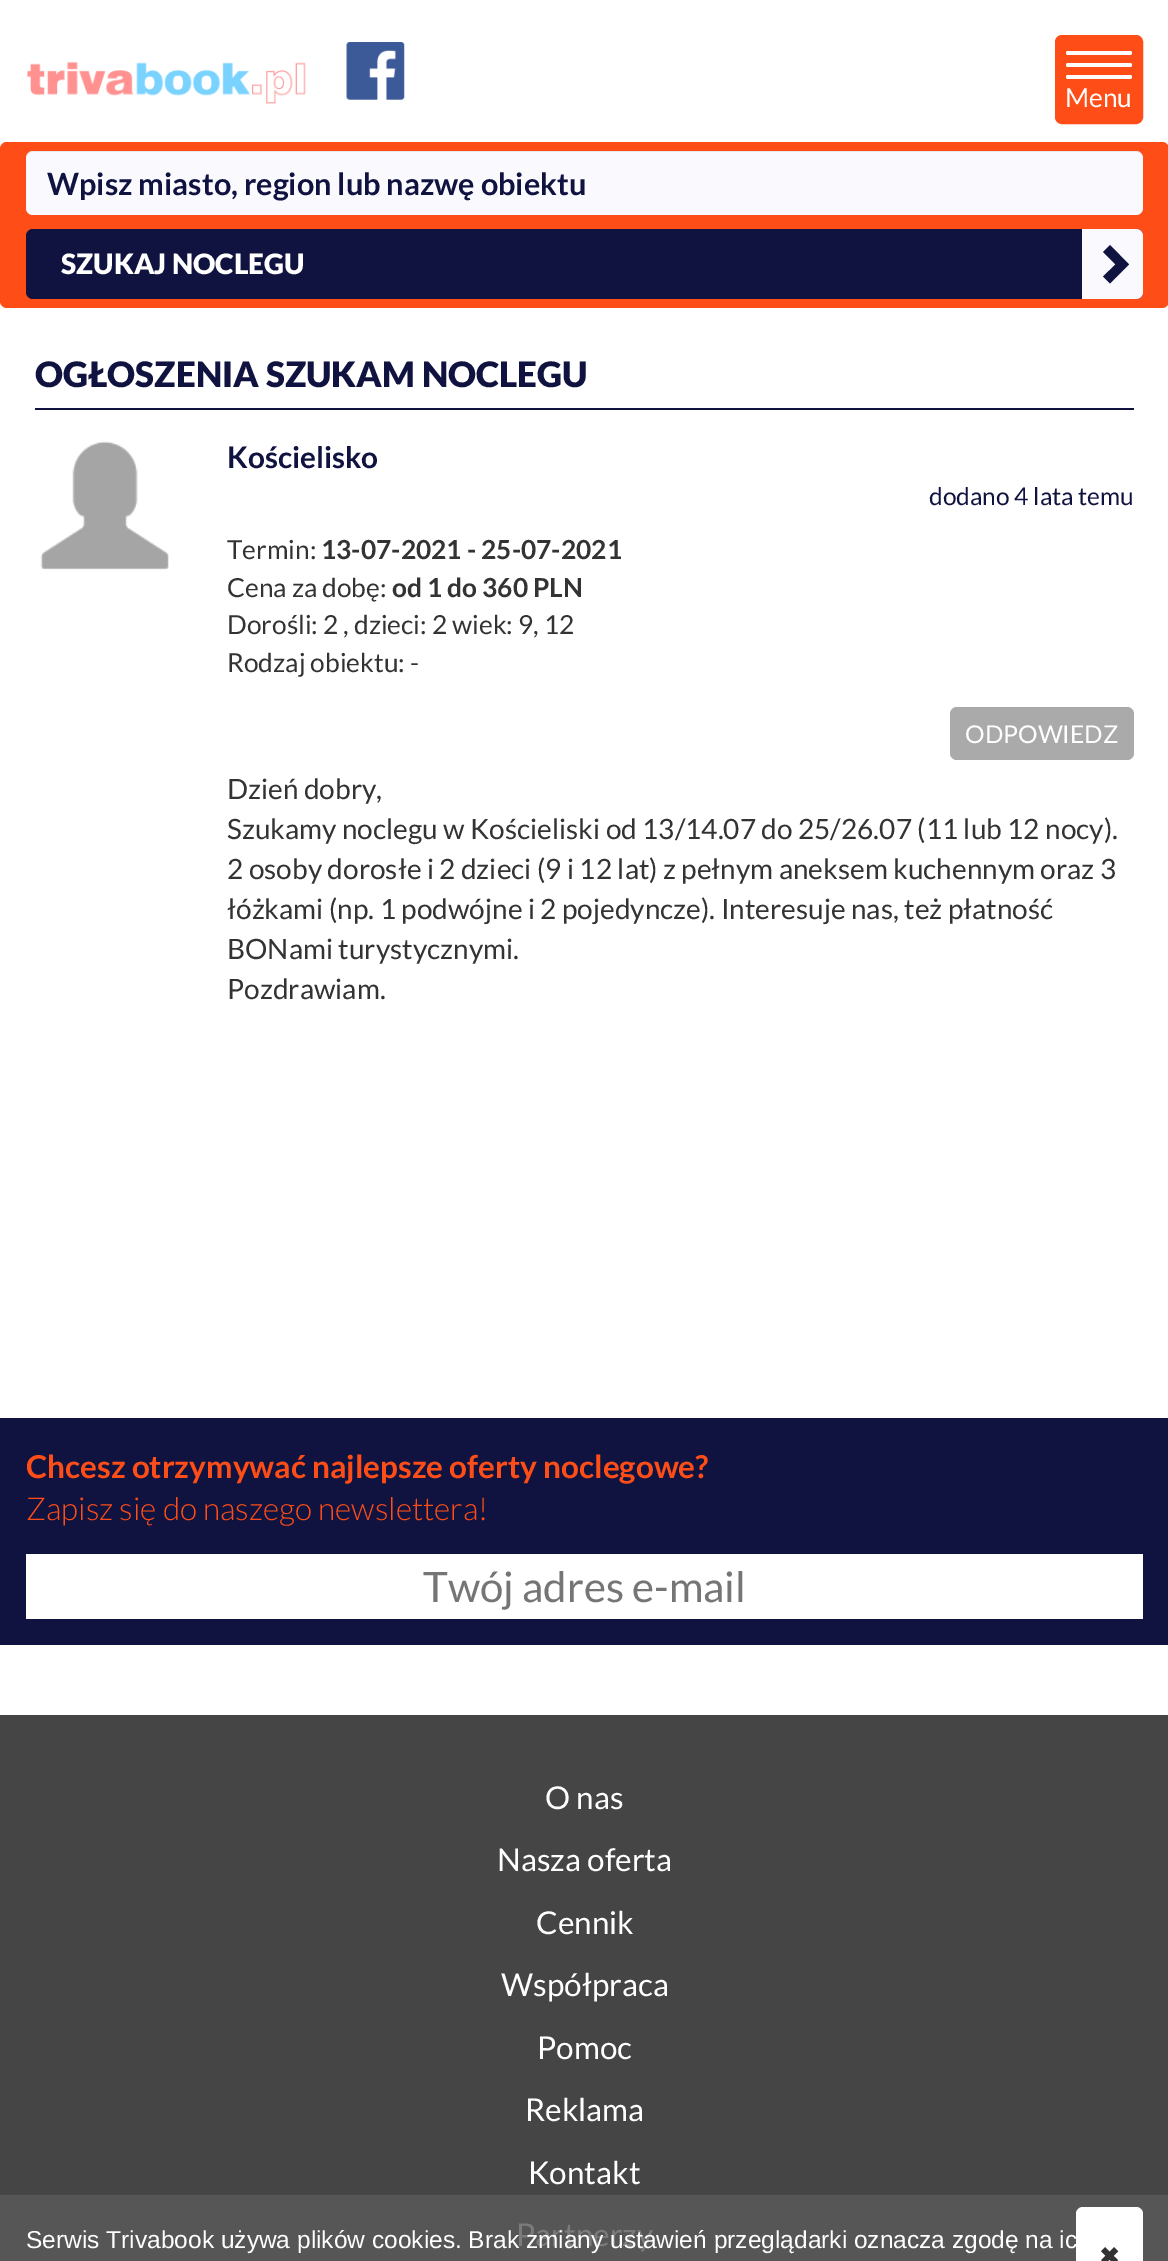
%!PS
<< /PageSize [1168 2261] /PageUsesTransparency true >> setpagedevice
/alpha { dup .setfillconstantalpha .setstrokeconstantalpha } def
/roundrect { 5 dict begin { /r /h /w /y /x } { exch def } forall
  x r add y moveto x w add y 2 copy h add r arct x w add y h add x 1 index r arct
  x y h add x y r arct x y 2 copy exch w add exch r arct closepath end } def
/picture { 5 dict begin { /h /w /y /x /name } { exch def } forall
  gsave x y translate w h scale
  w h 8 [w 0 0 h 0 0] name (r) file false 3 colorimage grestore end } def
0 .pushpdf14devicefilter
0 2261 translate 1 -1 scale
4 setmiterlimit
1 setgray
0 0 1168 2261 rectfill
(img1.rgb) 27 61 279 43 picture
(img2.rgb) 346 42 59 58 picture
0.996 0.302 0.09 setrgbcolor
1056 36 86 87 6 roundrect gsave fill grestore
2 setlinewidth
stroke
1 setgray
1066 51 66 4 2 roundrect fill
1066 63 66 4 2 roundrect fill
1066 75 66 4 2 roundrect fill
/Lato-Regular [26.25 0 0 -26.25 0 0] selectfont
1065 107 moveto (Menu) show
0.996 0.302 0.09 setrgbcolor
0 142 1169 166 7 roundrect fill
0.976 0.976 0.996 setrgbcolor
26 151 1117 64 7 roundrect fill
0.07 alpha
0 setgray
newpath 33 152 moveto 1136 152 lineto 1140 152 1143 155 1143 159 curveto 1143 155 1141 151 1136 151 curveto 33 151 lineto 28 151 26 155 26 159 curveto 26 155 29 152 33 152 curveto closepath fill
/Lato-Bold [30.6 0 0 -30.6 0 0] selectfont
1 alpha
0.063 0.075 0.251 setrgbcolor
47 195 moveto (Wpisz miasto, region lub nazwę obiektu) show
26 229 1117 70 7 roundrect fill
/Lato-Black [28 0 0 -28 0 0] selectfont
1 setgray
61 274 moveto (SZUKAJ NOCLEGU) show
0.976 0.976 0.996 setrgbcolor
newpath 1082 229 moveto 1136 229 lineto 1140 229 1143 232 1143 236 curveto 1143 292 lineto 1143 296 1140 299 1136 299 curveto 1082 299 lineto closepath fill
0.063 0.075 0.251 setrgbcolor
newpath 1129 264.5 moveto 1110 283.5 lineto 1103 276.5 lineto 1115.5 264.5 lineto 1103 252 lineto 1110 245 lineto closepath fill
35 408 1099 2 rectfill
/Lato-Black [35 0 0 -35 0 0] selectfont
35 387 moveto (OGŁOSZENIA SZUKAM NOCLEGU) show
(img3.rgb) 40 441 129 129 picture
/Lato-Bold [29.75 0 0 -29.75 0 0] selectfont
227 468 moveto (Kościelisko) show
/Lato-Regular [24.5 0 0 -24.5 0 0] selectfont
929 505 moveto (dodano 4 lata temu) show
/Lato-Regular [26.25 0 0 -26.25 0 0] selectfont
0.2 setgray
227 559 moveto (Termin:) show
/Lato-Bold [26.25 0 0 -26.25 0 0] selectfont
321 559 moveto (13-07-2021 - 25-07-2021) show
/Lato-Regular [26.25 0 0 -26.25 0 0] selectfont
227 597 moveto (Cena za dobę:) show
/Lato-Bold [26.25 0 0 -26.25 0 0] selectfont
392 597 moveto (od 1 do 360 PLN) show
/Lato-Regular [26.25 0 0 -26.25 0 0] selectfont
227 634 moveto (Dorośli: 2 , dzieci: 2 wiek: 9, 12) show
227 672 moveto (Rodzaj obiektu: -) show
0.667 setgray
950 707 184 53 7 roundrect fill
/Lato-Regular [24.5 0 0 -24.5 0 0] selectfont
1 setgray
965 743 moveto (ODPOWIEDZ) show
/Lato-Regular [28 0 0 -28 0 0] selectfont
0.2 setgray
227 799 moveto (Dzień dobry,) show
227 839 moveto (Szukamy noclegu w Kościeliski od 13/14.07 do 25/26.07 \(11 lub 12 nocy\).) show
227 879 moveto (2 osoby dorosłe i 2 dzieci \(9 i 12 lat\) z pełnym aneksem kuchennym oraz 3) show
227 919 moveto (łóżkami \(np. 1 podwójne i 2 pojedyncze\). Interesuje nas, też płatność) show
227 959 moveto (BONami turystycznymi.) show
227 999 moveto (Pozdrawiam.) show
0.063 0.075 0.251 setrgbcolor
0 1418 1168 227 rectfill
/Lato-Bold [31.5 0 0 -31.5 0 0] selectfont
0.996 0.302 0.09 setrgbcolor
26 1478 moveto (Chcesz otrzymywać najlepsze oferty noclegowe?) show
/Lato-Light [31.5 0 0 -31.5 0 0] selectfont
26 1520 moveto (Zapisz się do naszego newslettera!) show
1 setgray
26 1554 1117 65 rectfill
/Lato-Regular [42 0 0 -42 0 0] selectfont
0.459 setgray
423 1602 moveto (Twój adres e-mail) show
0.271 setgray
0 1715 1168 480 rectfill
0.337 setgray
0 2195 1168 66 rectfill
/Lato-Regular [31.5 0 0 -31.5 0 0] selectfont
1 setgray
545 1809 moveto (O nas) show
497 1871 moveto (Nasza oferta) show
536 1934 moveto (Cennik) show
501 1996 moveto (Współpraca) show
537 2059 moveto (Pomoc) show
525 2121 moveto (Reklama) show
528 2184 moveto (Kontakt) show
0.482 setgray
516 2246 moveto (Partnerzy) show
/LiberationSans-Regular [24.5 0 0 -24.5 0 0] selectfont
1 setgray
26 2248 moveto (Serwis Trivabook używa plików cookies. Brak zmiany ustawień przeglądarki oznacza zgodę na ic) show
1076 2207 67 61 7 roundrect fill
/DejaVuSans-Bold [24.5 0 0 -24.5 0 0] selectfont
0.2 setgray
1099 2265 moveto (✖) show
.poppdf14devicefilter showpage
